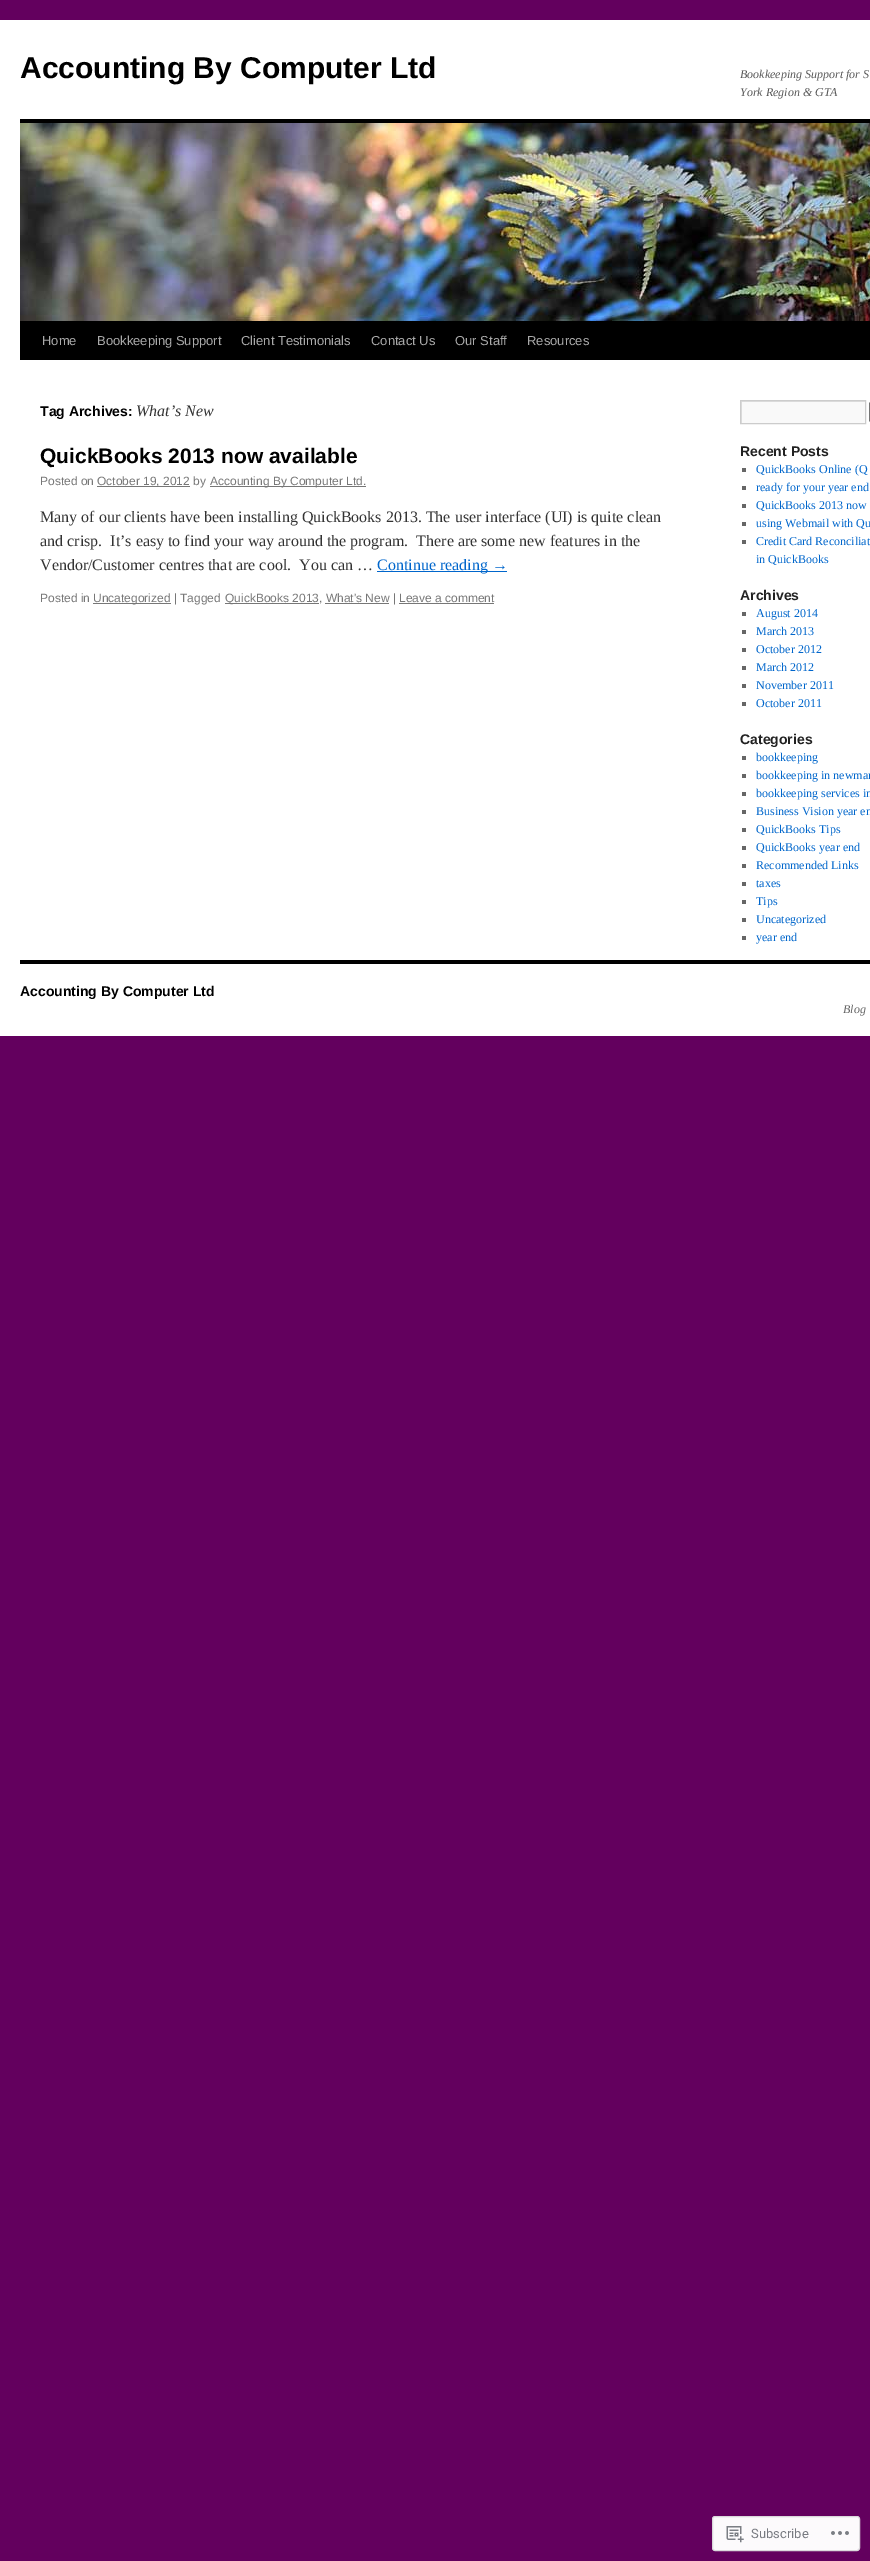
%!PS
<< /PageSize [870 2561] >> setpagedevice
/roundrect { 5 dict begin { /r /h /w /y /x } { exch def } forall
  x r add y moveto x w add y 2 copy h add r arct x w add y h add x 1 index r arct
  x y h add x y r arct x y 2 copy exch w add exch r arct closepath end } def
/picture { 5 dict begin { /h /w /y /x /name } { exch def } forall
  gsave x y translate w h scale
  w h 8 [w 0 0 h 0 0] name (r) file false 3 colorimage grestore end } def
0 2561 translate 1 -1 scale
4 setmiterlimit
0.388 0 0.369 setrgbcolor
0 0 870 2561 rectfill
1 setgray
0 20 870 1016 rectfill
/LiberationSans-Bold [30 0 0 -30 0 0] selectfont
0 setgray
20 78 moveto (Accounting By Computer Ltd) show
/LiberationSerif-Italic [12 0 0 -12 0 0] selectfont
0.349 setgray
740 78 moveto (Bookkeeping Support for S) show
740 96 moveto (York Region & GTA) show
0 setgray
20 119 850 4 rectfill
20 321 850 39 rectfill
(img1.rgb) 20 123 850 198 picture
/LiberationSans-Regular [13 0 0 -13 0 0] selectfont
0.667 setgray
42 345 moveto (Home) show
97 345 moveto (Bookkeeping Support) show
241 345 moveto (Client Testimonials) show
371 345 moveto (Contact Us) show
455 345 moveto (Our Staff) show
527 345 moveto (Resources) show
/LiberationSans-Bold [14 0 0 -14 0 0] selectfont
0 setgray
40 416 moveto (Tag Archives:) show
/LiberationSerif-Italic [16 0 0 -16 0 0] selectfont
0.2 setgray
136 416 moveto (What’s New) show
/LiberationSans-Bold [21 0 0 -21 0 0] selectfont
0 setgray
40 463 moveto (QuickBooks 2013 now available) show
/LiberationSans-Regular [12 0 0 -12 0 0] selectfont
0.467 setgray
40 485 moveto (Posted on) show
97 486 93 1 rectfill
97 485 moveto (October 19, 2012 by) show
210 486 156 1 rectfill
210 485 moveto (Accounting By Computer Ltd.) show
/LiberationSerif-Regular [16 0 0 -16 0 0] selectfont
0.2 setgray
40 522 moveto (Many of our clients have been installing QuickBooks 2013. The user interface \(UI\) is quite clean) show
40 546 moveto (and crisp.  It’s easy to find your way around the program.  There are some new features in the) show
40 570 moveto (Vendor/Customer centres that are cool.  You can …) show
0 0.4 0.8 setrgbcolor
377 571 130 1 rectfill
377 570 moveto (Continue reading →) show
/LiberationSans-Regular [12 0 0 -12 0 0] selectfont
0.467 setgray
40 602 moveto (Posted in) show
93 603 78 1 rectfill
93 602 moveto (Uncategorized | Tagged) show
225 603 94 1 rectfill
225 602 moveto (QuickBooks 2013, What's New | Leave a comment) show
325 603 64 1 rectfill
399 603 95 1 rectfill
0.976 setgray
742 402 123 21 rectfill
gsave
741 401 124 22 rectclip
0.878 setgray
newpath 642 302 moveto 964 302 lineto 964 522 lineto 642 522 lineto closepath 742 402 moveto 866 402 lineto 866 424 lineto 742 424 lineto closepath eofill
grestore
0.8 setgray
740.5 400.5 125 23 rectstroke
0.463 setgray
869.5 402.5 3 19 1.5 roundrect stroke
/LiberationSans-Bold [14 0 0 -14 0 0] selectfont
0.133 setgray
740 456 moveto (Recent Posts) show
0.4 setgray
742 468 4 4 rectfill
/LiberationSerif-Regular [12 0 0 -12 0 0] selectfont
0 0.4 0.8 setrgbcolor
756 473 moveto (QuickBooks Online \(Q) show
0.4 setgray
742 486 4 4 rectfill
0 0.4 0.8 setrgbcolor
756 491 moveto (ready for your year end) show
0.4 setgray
742 504 4 4 rectfill
0 0.4 0.8 setrgbcolor
756 509 moveto (QuickBooks 2013 now) show
0.4 setgray
742 522 4 4 rectfill
0 0.4 0.8 setrgbcolor
756 527 moveto (using Webmail with Qu) show
0.4 setgray
742 540 4 4 rectfill
0 0.4 0.8 setrgbcolor
756 545 moveto (Credit Card Reconciliat) show
756 563 moveto (in QuickBooks) show
/LiberationSans-Bold [14 0 0 -14 0 0] selectfont
0.133 setgray
740 600 moveto (Archives) show
0.4 setgray
742 612 4 4 rectfill
/LiberationSerif-Regular [12 0 0 -12 0 0] selectfont
0 0.4 0.8 setrgbcolor
756 617 moveto (August 2014) show
0.4 setgray
742 630 4 4 rectfill
0 0.4 0.8 setrgbcolor
756 635 moveto (March 2013) show
0.4 setgray
742 648 4 4 rectfill
0 0.4 0.8 setrgbcolor
756 653 moveto (October 2012) show
0.4 setgray
742 666 4 4 rectfill
0 0.4 0.8 setrgbcolor
756 671 moveto (March 2012) show
0.4 setgray
742 684 4 4 rectfill
0 0.4 0.8 setrgbcolor
756 689 moveto (November 2011) show
0.4 setgray
742 702 4 4 rectfill
0 0.4 0.8 setrgbcolor
756 707 moveto (October 2011) show
/LiberationSans-Bold [14 0 0 -14 0 0] selectfont
0.133 setgray
740 744 moveto (Categories) show
0.4 setgray
742 756 4 4 rectfill
/LiberationSerif-Regular [12 0 0 -12 0 0] selectfont
0 0.4 0.8 setrgbcolor
756 761 moveto (bookkeeping) show
0.4 setgray
742 774 4 4 rectfill
0 0.4 0.8 setrgbcolor
756 779 moveto (bookkeeping in newmar) show
0.4 setgray
742 792 4 4 rectfill
0 0.4 0.8 setrgbcolor
756 797 moveto (bookkeeping services in) show
0.4 setgray
742 810 4 4 rectfill
0 0.4 0.8 setrgbcolor
756 815 moveto (Business Vision year en) show
0.4 setgray
742 828 4 4 rectfill
0 0.4 0.8 setrgbcolor
756 833 moveto (QuickBooks Tips) show
0.4 setgray
742 846 4 4 rectfill
0 0.4 0.8 setrgbcolor
756 851 moveto (QuickBooks year end) show
0.4 setgray
742 864 4 4 rectfill
0 0.4 0.8 setrgbcolor
756 869 moveto (Recommended Links) show
0.4 setgray
742 882 4 4 rectfill
0 0.4 0.8 setrgbcolor
756 887 moveto (taxes) show
0.4 setgray
742 900 4 4 rectfill
0 0.4 0.8 setrgbcolor
756 905 moveto (Tips) show
0.4 setgray
742 918 4 4 rectfill
0 0.4 0.8 setrgbcolor
756 923 moveto (Uncategorized) show
0.4 setgray
742 936 4 4 rectfill
0 0.4 0.8 setrgbcolor
756 941 moveto (year end) show
0 setgray
20 960 850 4 rectfill
/LiberationSans-Bold [14 0 0 -14 0 0] selectfont
20 996 moveto (Accounting By Computer Ltd) show
/LiberationSerif-Italic [12 0 0 -12 0 0] selectfont
0.4 setgray
843 1013 moveto (Blog) show
0.988 0.98 0.988 setrgbcolor
712.5 2516.5 147 34 2.5 roundrect gsave fill grestore
0.855 0.847 0.859 setrgbcolor
stroke
(img2.rgb) 726 2526 18 17 picture
/Roboto-Regular [13 0 0 -13 0 0] selectfont
0.471 0.478 0.506 setrgbcolor
751 2538 moveto (Subscribe) show
(img3.rgb) 831 2531 18 4 picture
showpage
